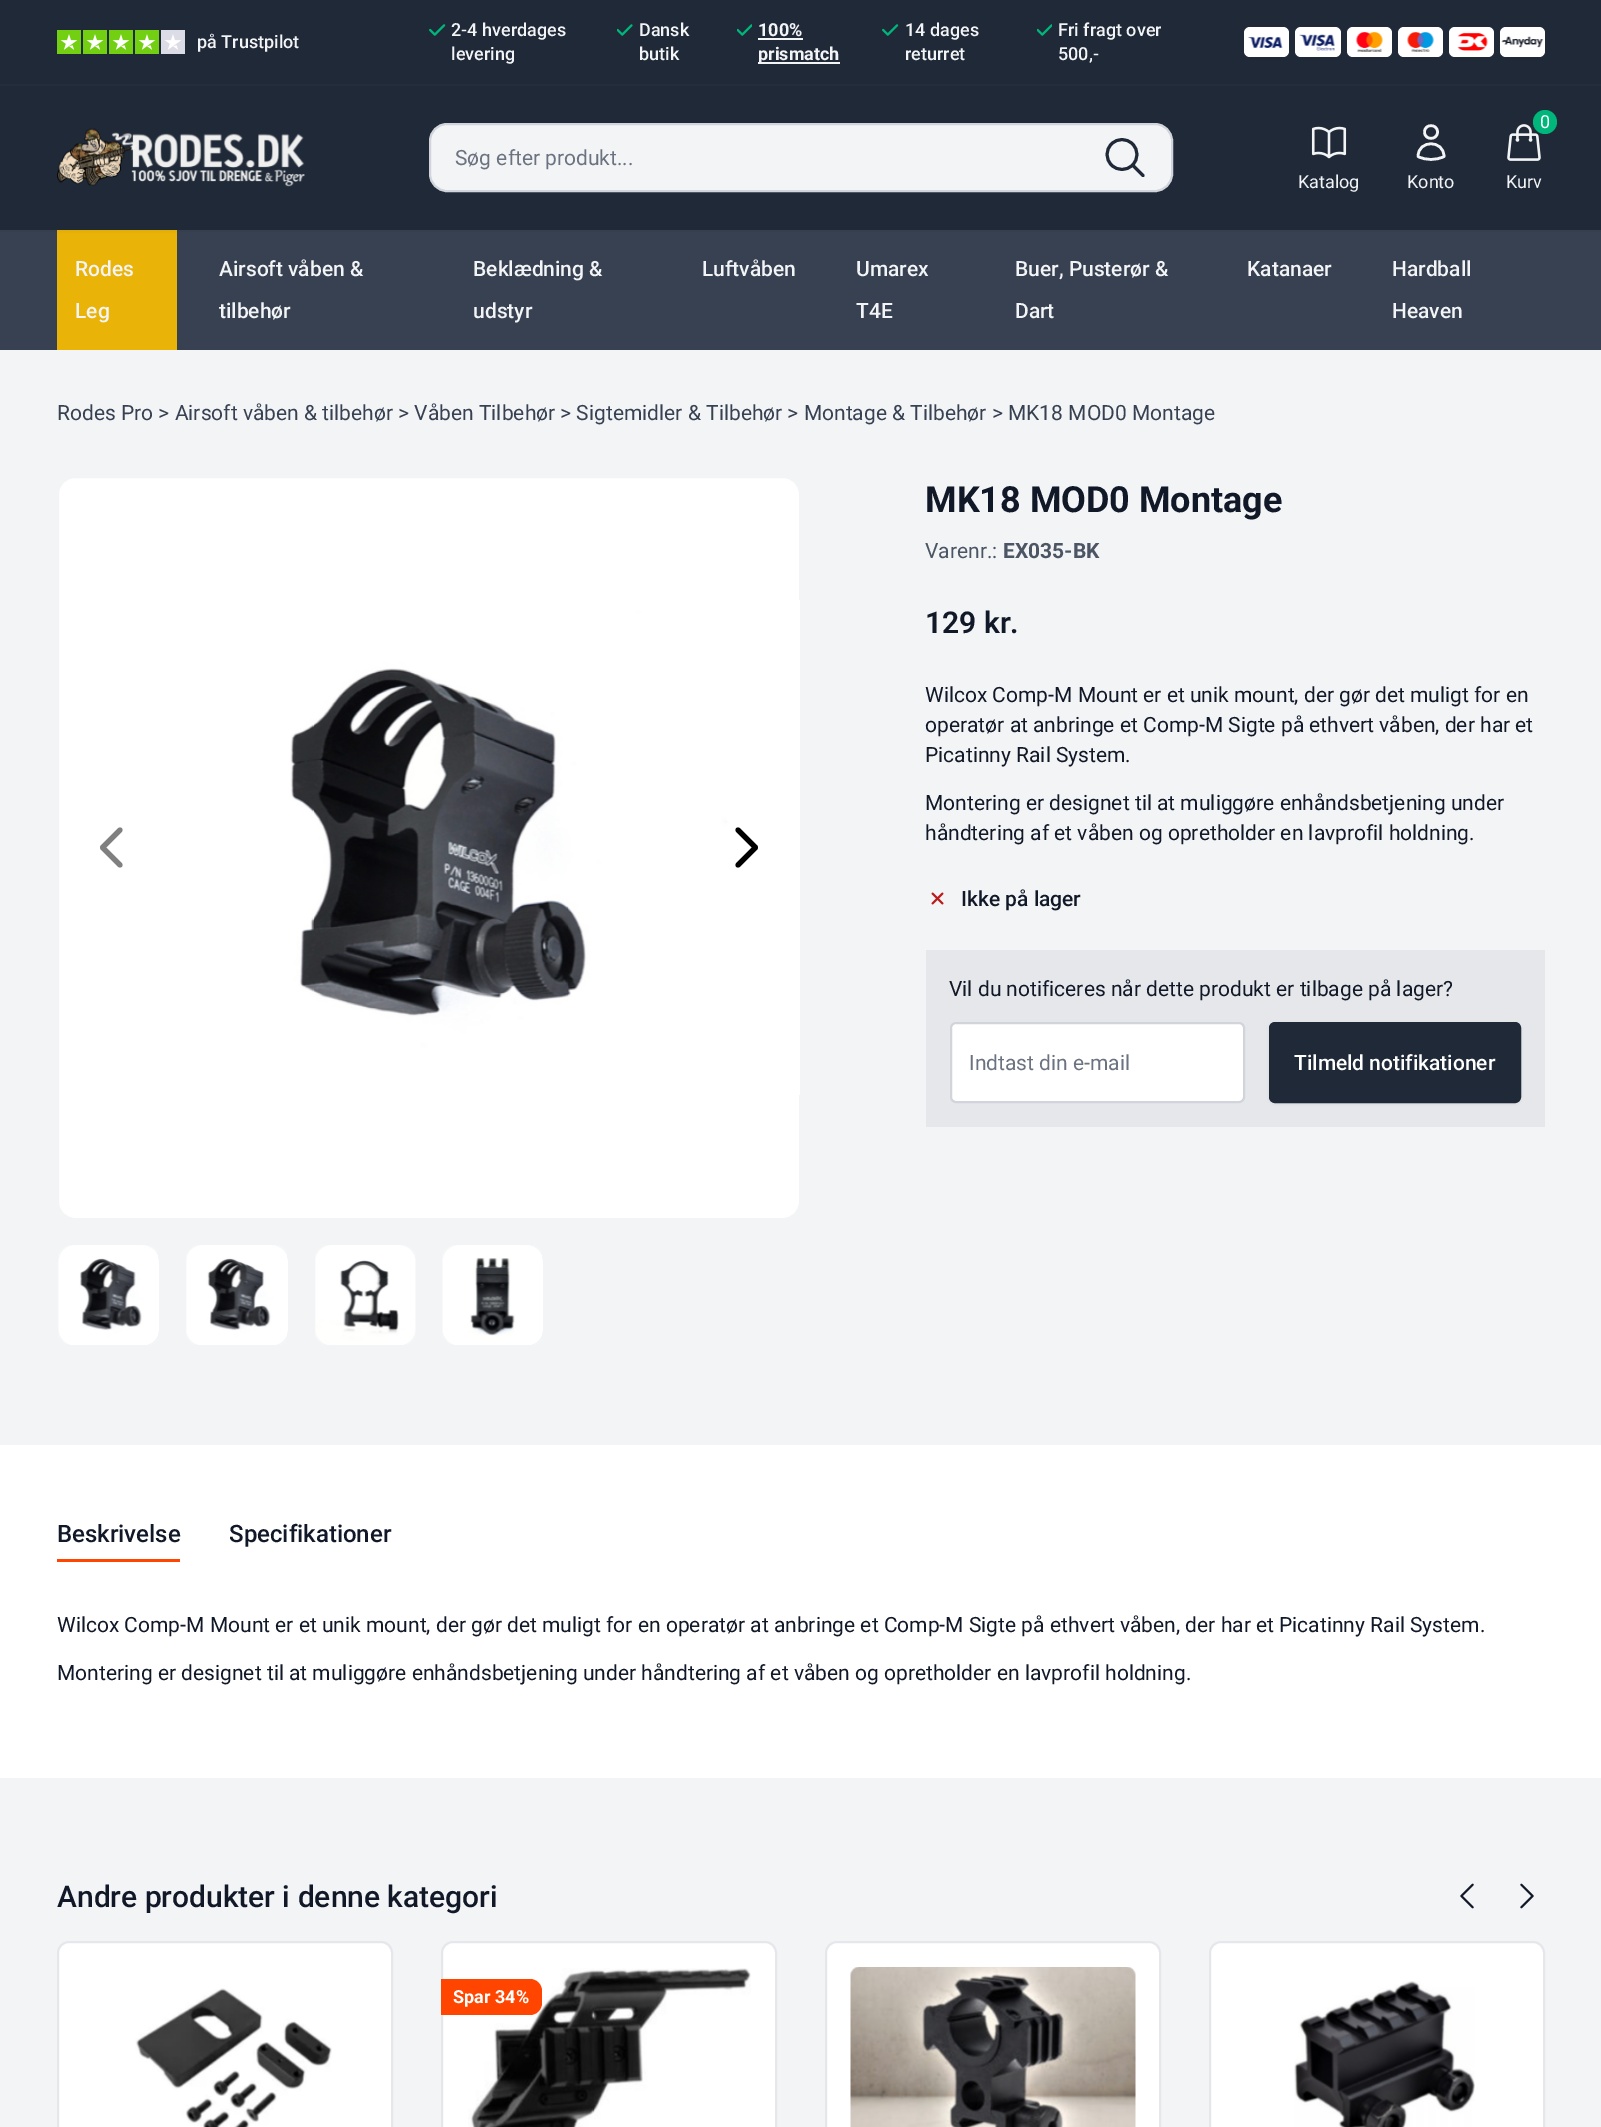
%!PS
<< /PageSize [1601 2127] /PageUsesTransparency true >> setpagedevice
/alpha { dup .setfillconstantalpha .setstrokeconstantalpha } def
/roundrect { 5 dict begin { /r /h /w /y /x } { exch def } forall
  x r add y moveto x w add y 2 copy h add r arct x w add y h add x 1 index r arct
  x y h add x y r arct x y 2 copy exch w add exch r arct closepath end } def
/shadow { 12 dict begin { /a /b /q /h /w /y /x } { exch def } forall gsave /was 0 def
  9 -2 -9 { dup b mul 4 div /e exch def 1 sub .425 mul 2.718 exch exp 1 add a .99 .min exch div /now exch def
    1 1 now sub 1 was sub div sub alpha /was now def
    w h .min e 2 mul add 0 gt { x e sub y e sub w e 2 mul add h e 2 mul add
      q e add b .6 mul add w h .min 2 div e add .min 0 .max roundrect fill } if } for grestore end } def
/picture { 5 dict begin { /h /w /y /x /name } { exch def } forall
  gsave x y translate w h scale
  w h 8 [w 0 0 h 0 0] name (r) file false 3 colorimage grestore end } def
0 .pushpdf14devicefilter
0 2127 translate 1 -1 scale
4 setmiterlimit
0.953 0.957 0.965 setrgbcolor
0 0 1601 2127 rectfill
0.122 0.161 0.216 setrgbcolor
0 0 1601 84 rectfill
0.137 0.176 0.231 setrgbcolor
0 84 1601 2 rectfill
(img1.rgb) 57 30 128 24 picture
/Roboto-Medium [18 0 0 -18 0 0] selectfont
0.953 0.957 0.965 setrgbcolor
197 48 moveto (på Trustpilot) show
(img2.rgb) 429 24 17 12 picture
451 36 moveto (2-4 hverdages) show
451 60 moveto (levering) show
(img3.rgb) 617 24 16 12 picture
639 36 moveto (Dansk) show
639 60 moveto (butik) show
(img4.rgb) 737 24 15 12 picture
/Roboto-Bold [18 0 0 -18 0 0] selectfont
758 36 moveto (100%) show
758 38 45 2 rectfill
758 62 82 2 rectfill
758 60 moveto (prismatch) show
(img5.rgb) 882 24 17 12 picture
/Roboto-Medium [18 0 0 -18 0 0] selectfont
905 36 moveto (14 dages) show
905 60 moveto (returret) show
(img6.rgb) 1037 24 15 12 picture
1058 36 moveto (Fri fragt over) show
1058 60 moveto (500,-) show
1 setgray
1244 27 45 30 6 roundrect fill
(img7.rgb) 1248 36 35 12 picture
1295 27 46 30 6 roundrect fill
(img8.rgb) 1299 34 36 17 picture
1347 27 45 30 6 roundrect fill
(img9.rgb) 1355 32 28 20 picture
1398 27 45 30 6 roundrect fill
(img10.rgb) 1407 32 27 20 picture
1449 27 45 30 6 roundrect fill
(img11.rgb) 1457 32 31 19 picture
1500 27 45 30 6 roundrect fill
(img12.rgb) 1501 36 43 12 picture
0.216 0.255 0.318 setrgbcolor
0 230 1601 120 rectfill
0.918 0.702 0.031 setrgbcolor
57 230 120 120 rectfill
0 setgray
0 87 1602 144 0 1.5 0.05 shadow
0.122 0.161 0.216 setrgbcolor
0 86 1601 144 rectfill
(img13.rgb) 57 128 248 59 picture
0.953 0.957 0.965 setrgbcolor
430 124 742 67 17 roundrect gsave fill grestore
0.82 0.835 0.859 setrgbcolor
2 setlinewidth
stroke
/Roboto-Regular [21 0 0 -21 0 0] selectfont
0.42 0.447 0.502 setrgbcolor
455 165 moveto (Søg efter produkt...) show
0.122 0.161 0.216 setrgbcolor
3 setlinewidth
1 setlinecap
1 setlinejoin
newpath 1143 175.5 moveto 1132.5 165 lineto 1132.5 165 moveto 1138.5 159 1138.5 150 1132.5 144 curveto 1126.5 138 1117.5 138 1111.5 144 curveto 1105.5 150 1105.5 159 1111.5 165 curveto 1117.5 171 1126.5 171 1132.5 165 curveto closepath stroke
(img14.rgb) 1311 126 36 33 picture
/Roboto-Regular [18 0 0 -18 0 0] selectfont
0.953 0.957 0.965 setrgbcolor
1298 188 moveto (Katalog) show
2.6 setlinewidth
newpath 1437.5 132 moveto 1437.5 140.5 1424.5 140.5 1424.5 132 curveto 1424.5 123.5 1437.5 123.5 1437.5 132 curveto closepath 1418 156.5 moveto 1418 139.5 1444 139.5 1444 156.5 curveto 1436 160.5 1426 160.5 1418 156.5 curveto closepath stroke
1407 188 moveto (Konto) show
(img15.rgb) 1507 124 34 37 picture
0 0.714 0.478 setrgbcolor
newpath 1545 122 12 0 360 arc closepath fill
1 setgray
1540 128 moveto (0) show
0.953 0.957 0.965 setrgbcolor
1506 188 moveto (Kurv) show
/Roboto-Medium [21 0 0 -21 0 0] selectfont
75 276 moveto (Rodes) show
75 318 moveto (Leg) show
219 276 moveto (Airsoft våben &) show
219 318 moveto (tilbehør) show
473 276 moveto (Beklædning &) show
473 318 moveto (udstyr) show
702 276 moveto (Luftvåben) show
856 276 moveto (Umarex) show
856 318 moveto (T4E) show
1015 276 moveto (Buer, Pusterør &) show
1015 318 moveto (Dart) show
1247 276 moveto (Katanaer) show
1392 276 moveto (Hardball) show
1392 318 moveto (Heaven) show
/Roboto-Regular [21 0 0 -21 0 0] selectfont
0.216 0.255 0.318 setrgbcolor
57 420 moveto (Rodes Pro > Airsoft våben & tilbehør > Våben Tilbehør > Sigtemidler & Tilbehør > Montage & Tilbehør > MK18 MOD0 Montage) show
1 setgray
58 477 742 742 17 roundrect gsave fill grestore
0.953 0.957 0.965 setrgbcolor
2 setlinewidth
0 setlinecap
0 setlinejoin
stroke
0.502 setgray
5 setlinewidth
1 setlinecap
1 setlinejoin
newpath 120 865 moveto 102.5 847.5 lineto 120 830 lineto stroke
(img16.rgb) 290 600 510 495 picture
0 setgray
newpath 738 830 moveto 755.5 847.5 lineto 738 865 lineto stroke
1 setgray
58 1245 102 101 17 roundrect gsave fill grestore
0.953 0.957 0.965 setrgbcolor
2 setlinewidth
0 setlinecap
0 setlinejoin
stroke
(img17.rgb) 58 1245 100 100 picture
1 setgray
186 1245 103 101 17 roundrect gsave fill grestore
0.953 0.957 0.965 setrgbcolor
stroke
(img18.rgb) 186 1245 101 100 picture
(img19.rgb) 315 1245 101 100 picture
1 setgray
442 1245 102 101 17 roundrect gsave fill grestore
0.953 0.957 0.965 setrgbcolor
stroke
(img20.rgb) 442 1245 100 100 picture
/Roboto-Bold [36 0 0 -36 0 0] selectfont
0.067 0.094 0.153 setrgbcolor
925 512 moveto (MK18 MOD0 Montage) show
/Roboto-Regular [21 0 0 -21 0 0] selectfont
0.294 0.333 0.388 setrgbcolor
925 558 moveto (Varenr.:) show
/Roboto-Bold [21 0 0 -21 0 0] selectfont
1003 558 moveto (EX035-BK) show
/Roboto-SemiBold [30 0 0 -30 0 0] selectfont
0.067 0.094 0.153 setrgbcolor
925 633 moveto (129 kr.) show
/Roboto-Regular [21 0 0 -21 0 0] selectfont
925 702 moveto (Wilcox Comp-M Mount er et unik mount, der gør det muligt for en) show
925 732 moveto (operatør at anbringe et Comp-M Sigte på ethvert våben, der har et) show
925 762 moveto (Picatinny Rail System.) show
925 810 moveto (Montering er designet til at muliggøre enhåndsbetjening under) show
925 840 moveto (håndtering af et våben og opretholder en lavprofil holdning.) show
(img21.rgb) 931 892 13 13 picture
/Roboto-Medium [21 0 0 -21 0 0] selectfont
961 906 moveto (Ikke på lager) show
0.898 0.906 0.922 setrgbcolor
926 950 619 177 rectfill
/Roboto-Regular [21 0 0 -21 0 0] selectfont
0.067 0.094 0.153 setrgbcolor
949 996 moveto (Vil du notificeres når dette produkt er tilbage på lager?) show
1 setgray
951 1023 293 79 5 roundrect gsave fill grestore
0.82 0.835 0.859 setrgbcolor
stroke
0.42 0.447 0.502 setrgbcolor
969 1070 moveto (Indtast din e-mail) show
0 setgray
1269 1023 252 81 6 1.5 0.05 shadow
0.122 0.161 0.216 setrgbcolor
1270 1023 250 79 5 roundrect gsave fill grestore
stroke
/Roboto-Medium [21 0 0 -21 0 0] selectfont
1 setgray
1294 1070 moveto (Tilmeld notifikationer) show
0 1445 1601 333 rectfill
1 0.271 0 setrgbcolor
57 1559 123 3 rectfill
/Roboto-Medium [24 0 0 -24 0 0] selectfont
0.067 0.094 0.153 setrgbcolor
57 1542 moveto (Beskrivelse) show
229 1542 moveto (Specifikationer) show
/Roboto-Regular [21 0 0 -21 0 0] selectfont
57 1632 moveto (Wilcox Comp-M Mount er et unik mount, der gør det muligt for en operatør at anbringe et Comp-M Sigte på ethvert våben, der har et Picatinny Rail System.) show
57 1680 moveto (Montering er designet til at muliggøre enhåndsbetjening under håndtering af et våben og opretholder en lavprofil holdning.) show
/Roboto-Medium [30 0 0 -30 0 0] selectfont
57 1907 moveto (Andre produkter i denne kategori) show
(img22.rgb) 1460 1883 14 26 picture
(img23.rgb) 1520 1883 14 26 picture
1 setgray
58 1942 334 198 11 roundrect gsave fill grestore
0.898 0.906 0.922 setrgbcolor
stroke
(img24.rgb) 135 1988 197 139 picture
1 setgray
442 1942 334 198 11 roundrect gsave fill grestore
0.898 0.906 0.922 setrgbcolor
stroke
(img25.rgb) 468 1968 283 159 picture
1 0.271 0 setrgbcolor
newpath 441 1979 moveto 530 1979 lineto 536.5 1979 542 1984.5 542 1991 curveto 542 2003 lineto 542 2009.5 536.5 2015 530 2015 curveto 441 2015 lineto closepath fill
/Roboto-Bold [18 0 0 -18 0 0] selectfont
1 setgray
453 2003 moveto (Spar 34%) show
826 1942 334 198 11 roundrect gsave fill grestore
0.898 0.906 0.922 setrgbcolor
stroke
(img26.rgb) 850 1967 286 160 picture
1 setgray
1210 1942 334 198 11 roundrect gsave fill grestore
0.898 0.906 0.922 setrgbcolor
stroke
(img27.rgb) 1294 1981 181 146 picture
.poppdf14devicefilter showpage
